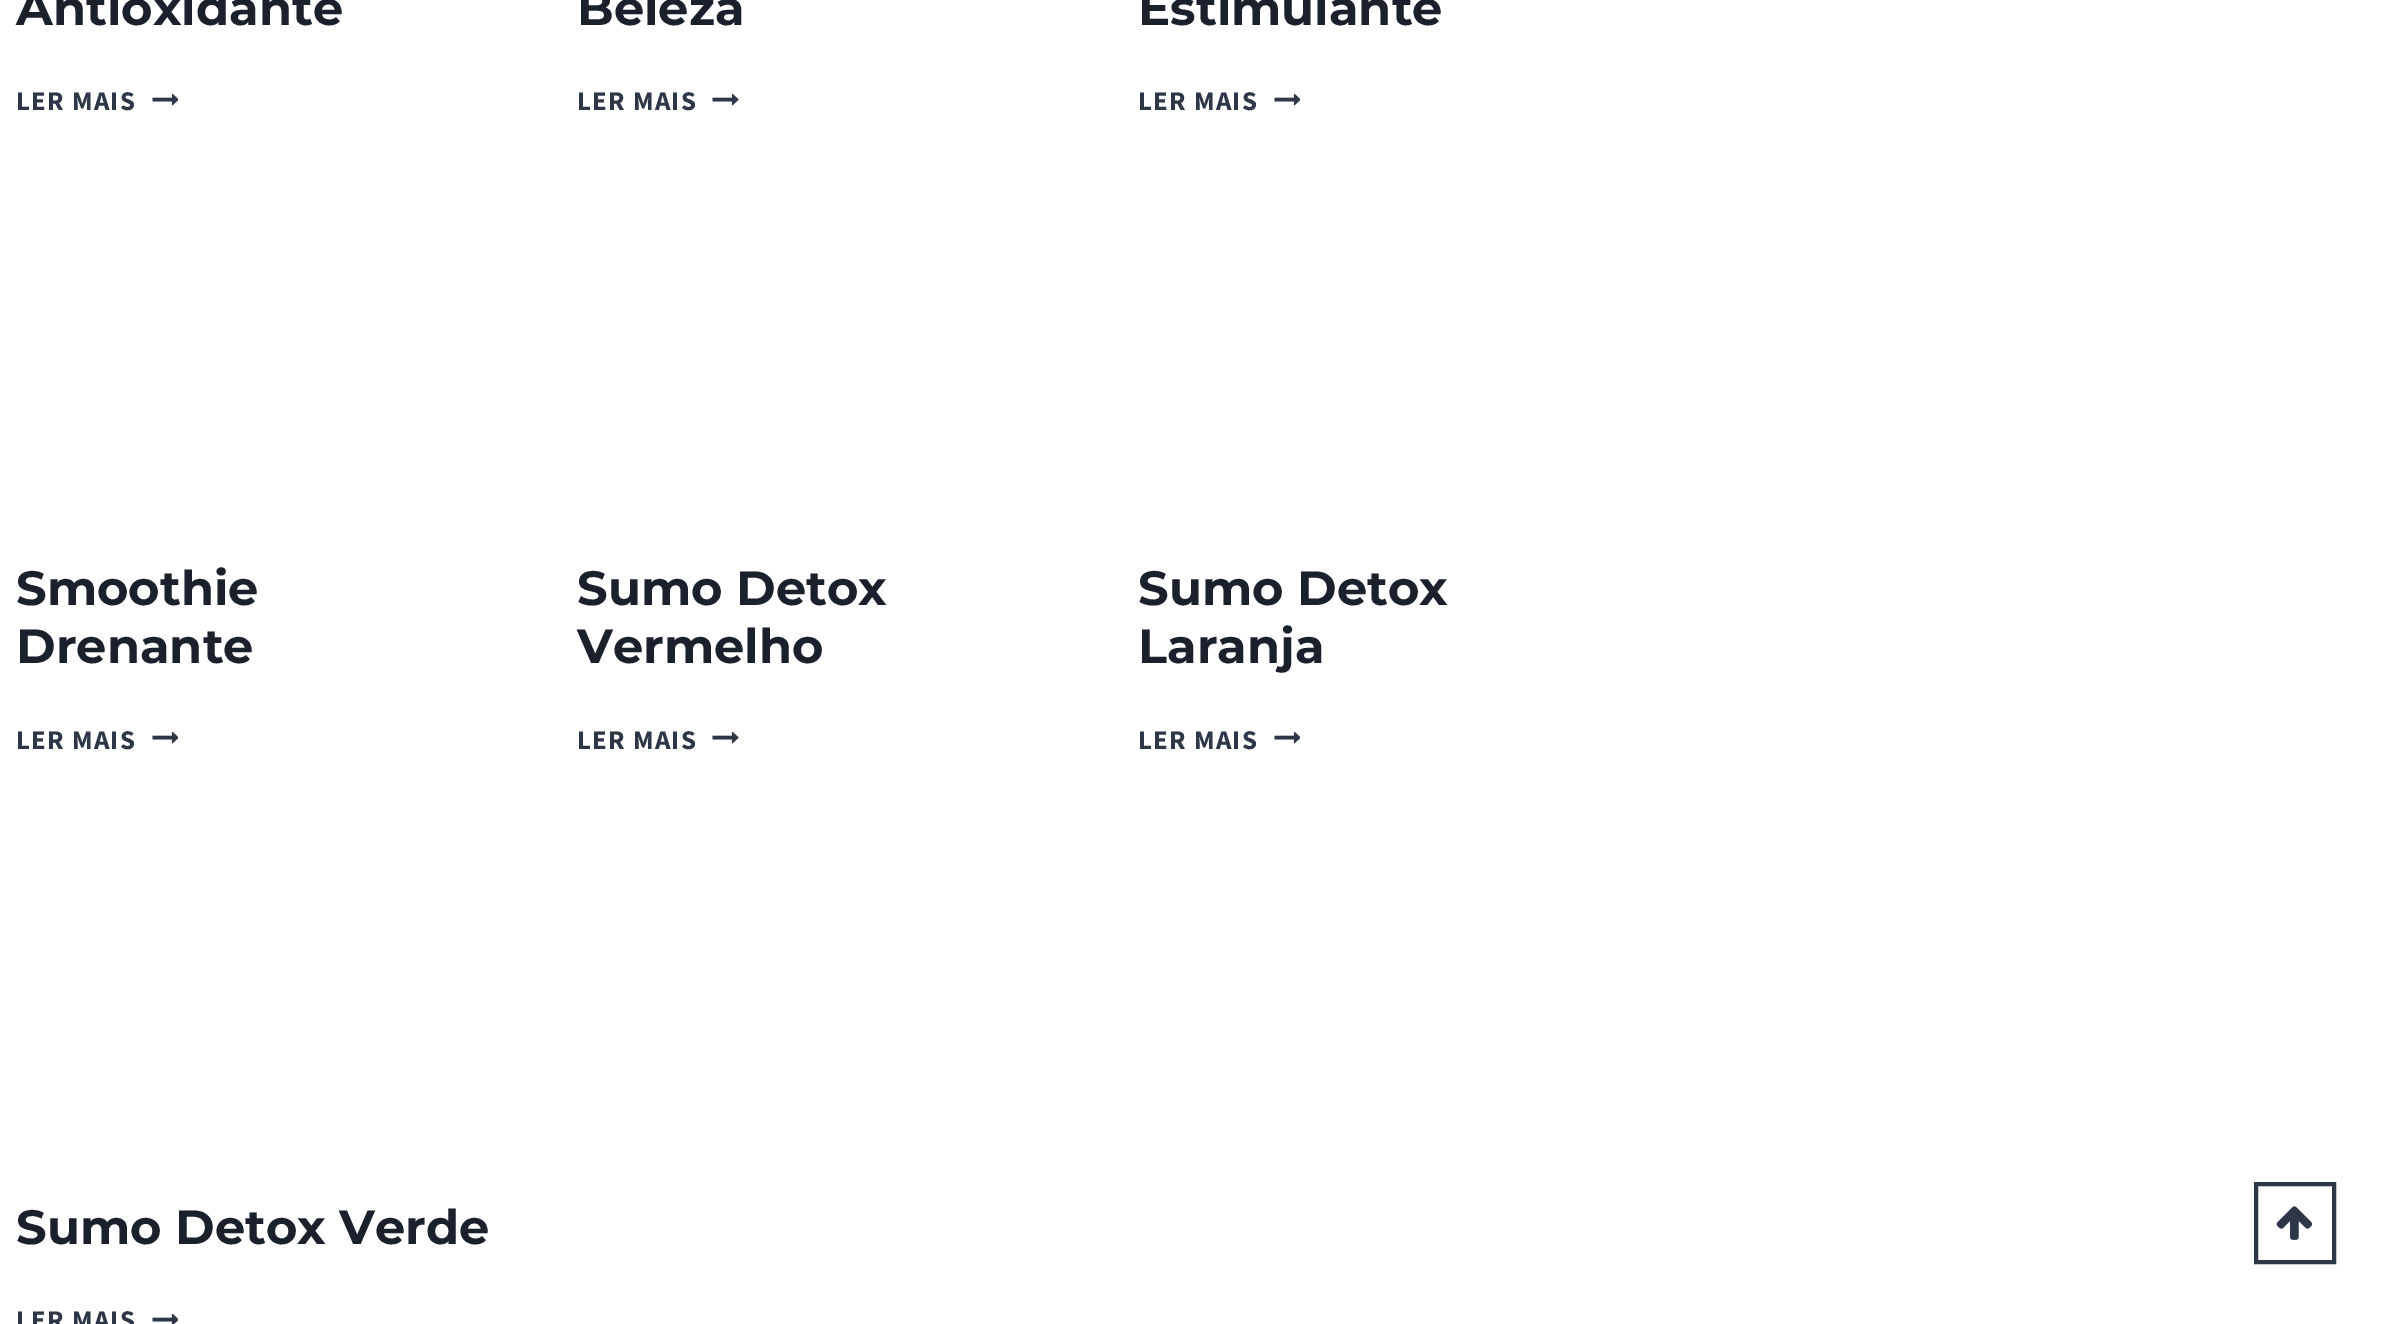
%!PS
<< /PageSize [2396 1324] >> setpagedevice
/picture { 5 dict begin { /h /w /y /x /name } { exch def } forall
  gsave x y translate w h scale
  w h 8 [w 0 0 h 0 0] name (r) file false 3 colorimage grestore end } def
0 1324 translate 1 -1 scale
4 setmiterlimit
1 setgray
0 0 2396 1324 rectfill
/Montserrat-Thin [48 0 0 -48 0 0] selectfont
0.102 0.125 0.173 setrgbcolor
16 25 moveto (Antioxidante) show
/SourceSansPro-Bold [27 0 0 -27 0 0] selectfont
0.176 0.216 0.282 setrgbcolor
16 110 moveto 1.25 0 (LER MAIS) ashow
(img1.rgb) 152 93 26 13 picture
/Montserrat-Thin [48 0 0 -48 0 0] selectfont
0.102 0.125 0.173 setrgbcolor
577 25 moveto (Beleza) show
/SourceSansPro-Bold [27 0 0 -27 0 0] selectfont
0.176 0.216 0.282 setrgbcolor
577 110 moveto 1.25 0 (LER MAIS) ashow
(img2.rgb) 712 93 27 13 picture
/Montserrat-Thin [48 0 0 -48 0 0] selectfont
0.102 0.125 0.173 setrgbcolor
1138 25 moveto (Estimulante) show
/SourceSansPro-Bold [27 0 0 -27 0 0] selectfont
0.176 0.216 0.282 setrgbcolor
1138 110 moveto 1.25 0 (LER MAIS) ashow
(img1.rgb) 1274 93 26 13 picture
/Montserrat-Thin [48 0 0 -48 0 0] selectfont
0.102 0.125 0.173 setrgbcolor
16 605 moveto (Smoothie) show
16 663 moveto (Drenante) show
/SourceSansPro-Bold [27 0 0 -27 0 0] selectfont
0.176 0.216 0.282 setrgbcolor
16 749 moveto 1.25 0 (LER MAIS) ashow
(img1.rgb) 152 731 26 13 picture
/Montserrat-Thin [48 0 0 -48 0 0] selectfont
0.102 0.125 0.173 setrgbcolor
577 605 moveto (Sumo Detox) show
577 663 moveto (Vermelho) show
/SourceSansPro-Bold [27 0 0 -27 0 0] selectfont
0.176 0.216 0.282 setrgbcolor
577 749 moveto 1.25 0 (LER MAIS) ashow
(img2.rgb) 712 731 27 13 picture
/Montserrat-Thin [48 0 0 -48 0 0] selectfont
0.102 0.125 0.173 setrgbcolor
1138 605 moveto (Sumo Detox) show
1138 663 moveto (Laranja) show
/SourceSansPro-Bold [27 0 0 -27 0 0] selectfont
0.176 0.216 0.282 setrgbcolor
1138 749 moveto 1.25 0 (LER MAIS) ashow
(img1.rgb) 1274 731 26 13 picture
/Montserrat-Thin [48 0 0 -48 0 0] selectfont
0.102 0.125 0.173 setrgbcolor
16 1244 moveto (Sumo Detox Verde) show
/SourceSansPro-Bold [27 0 0 -27 0 0] selectfont
0.176 0.216 0.282 setrgbcolor
16 1329 moveto 1.25 0 (LER MAIS) ashow
(img3.rgb) 152 1313 26 11 picture
4 setlinewidth
2256 1184 78 78 rectstroke
(img4.rgb) 2276 1206 37 34 picture
showpage
